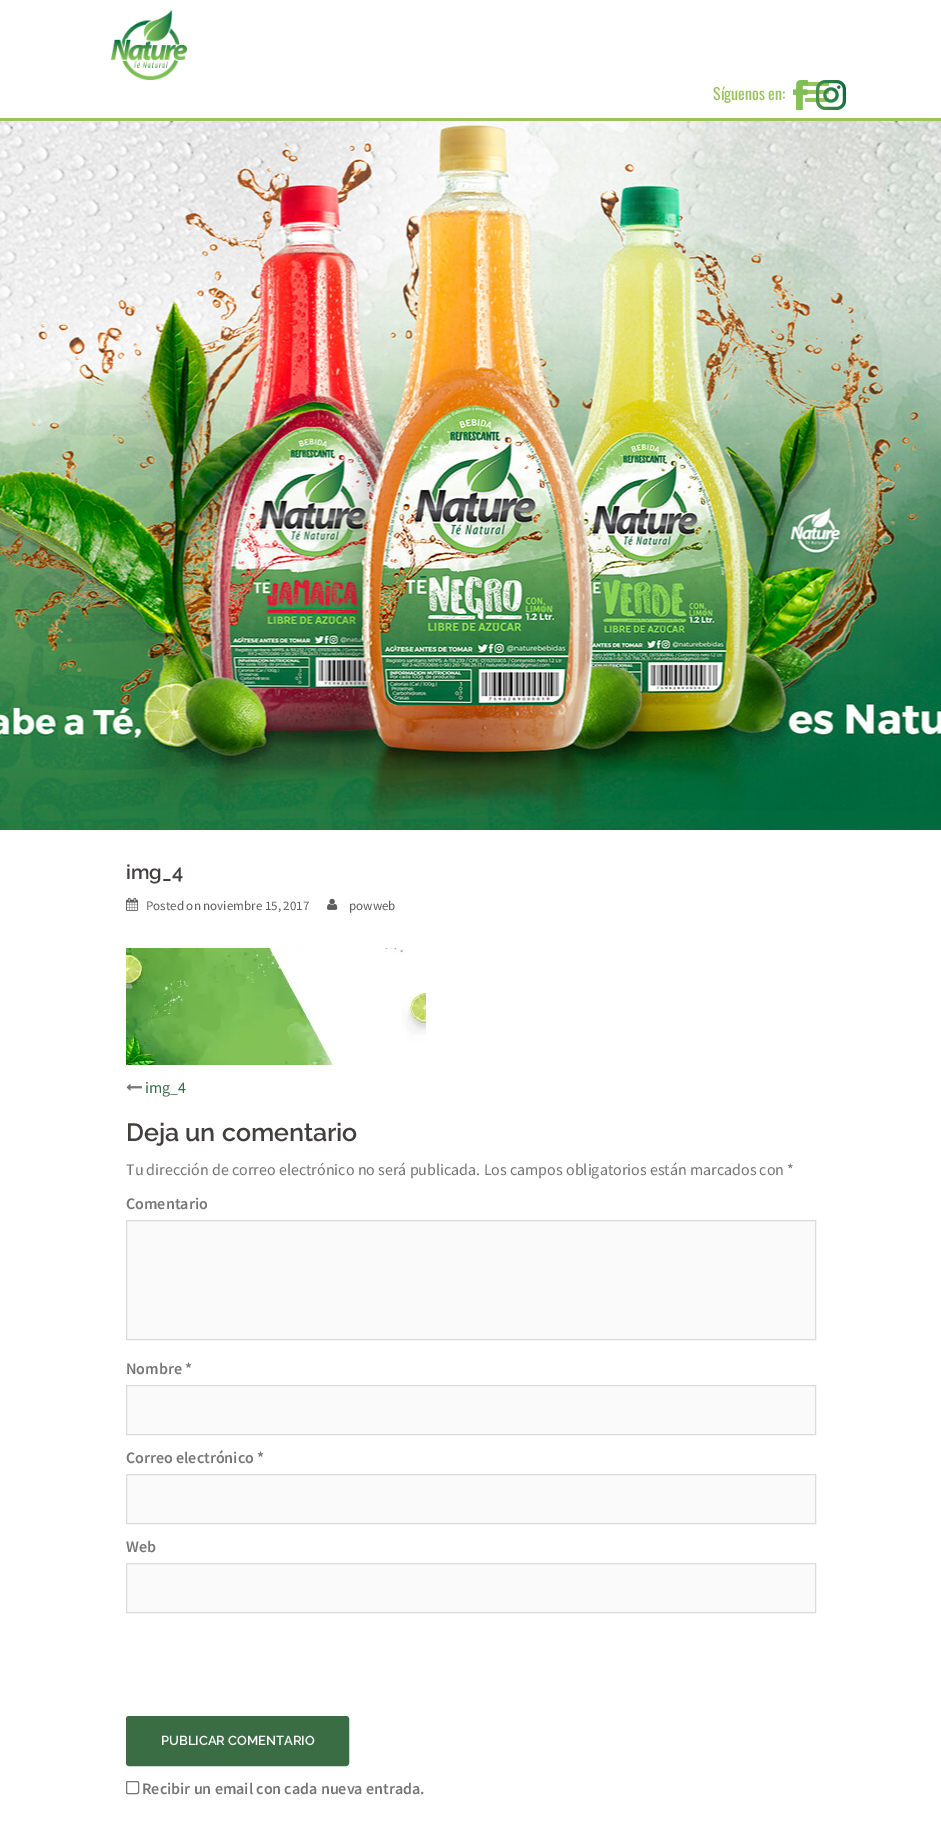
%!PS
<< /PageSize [941 1821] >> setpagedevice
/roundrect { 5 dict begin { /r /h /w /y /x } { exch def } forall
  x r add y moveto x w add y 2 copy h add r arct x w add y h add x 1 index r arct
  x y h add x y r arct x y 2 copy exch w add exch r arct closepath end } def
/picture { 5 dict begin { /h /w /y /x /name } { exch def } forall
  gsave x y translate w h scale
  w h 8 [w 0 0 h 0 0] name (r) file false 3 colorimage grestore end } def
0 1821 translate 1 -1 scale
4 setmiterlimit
1 setgray
0 0 941 1821 rectfill
0.596 0.765 0.373 setrgbcolor
0 118 941 3 rectfill
(img1.rgb) 111 10 76 70 picture
/Oswald-Regular [16 0 0 -16 0 0] selectfont
713 100 moveto (Síguenos en:) show
(img4.rgb) 805 82 24 20 picture
(img2.rgb) 793 80 15 30 picture
(img3.rgb) 816 80 30 30 picture
(img5.rgb) 0 121 941 709 picture
/Raleway-SemiBold [20 0 0 -20 0 0] selectfont
0.267 0.247 0.247 setrgbcolor
126 879 moveto (img_4) show
(img6.rgb) 126 897 13 14 picture
/SourceSansPro-Regular [13 0 0 -13 0 0] selectfont
0.369 setgray
146 910 moveto (Posted on noviembre 15, 2017) show
(img7.rgb) 327 898 11 12 picture
349 910 moveto (powweb) show
(img8.rgb) 126 948 300 117 picture
(img9.rgb) 126 1083 16 8 picture
/SourceSansPro-Regular [16 0 0 -16 0 0] selectfont
0.231 0.427 0.271 setrgbcolor
145 1093 moveto (img_4) show
/Raleway-SemiBold [25 0 0 -25 0 0] selectfont
0.267 0.247 0.247 setrgbcolor
126 1141 moveto (Deja un comentario) show
/SourceSansPro-Regular [16 0 0 -16 0 0] selectfont
0.463 setgray
126 1175 moveto (Tu dirección de correo electrónico no será publicada. Los campos obligatorios están marcados con *) show
/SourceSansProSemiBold-SemiBold [16 0 0 -16 0 0] selectfont
126 1209 moveto (Comentario) show
0.98 setgray
newpath 126.5 1220.5 moveto 815.5 1220.5 lineto 815.5 1339.5 lineto 126.5 1339.5 lineto closepath gsave fill grestore
0.859 setgray
stroke
0.463 setgray
126 1374 moveto (Nombre *) show
0.98 setgray
newpath 126.5 1385.5 moveto 815.5 1385.5 lineto 815.5 1434.5 lineto 126.5 1434.5 lineto closepath gsave fill grestore
0.859 setgray
stroke
0.463 setgray
126 1463 moveto (Correo electrónico *) show
0.98 setgray
newpath 126.5 1474.5 moveto 815.5 1474.5 lineto 815.5 1523.5 lineto 126.5 1523.5 lineto closepath gsave fill grestore
0.859 setgray
stroke
0.463 setgray
126 1552 moveto (Web) show
0.98 setgray
newpath 126.5 1563.5 moveto 815.5 1563.5 lineto 815.5 1612.5 lineto 126.5 1612.5 lineto closepath gsave fill grestore
0.859 setgray
stroke
0.231 0.427 0.271 setrgbcolor
126.5 1716.5 222 49 2.5 roundrect gsave fill grestore
stroke
/Raleway-SemiBold [13 0 0 -13 0 0] selectfont
1 setgray
161 1745 moveto (PUBLICAR COMENTARIO) show
0.463 setgray
126.5 1781.5 12 12 1.5 roundrect stroke
/SourceSansProSemiBold-SemiBold [16 0 0 -16 0 0] selectfont
142 1794 moveto (Recibir un email con cada nueva entrada.) show
showpage
